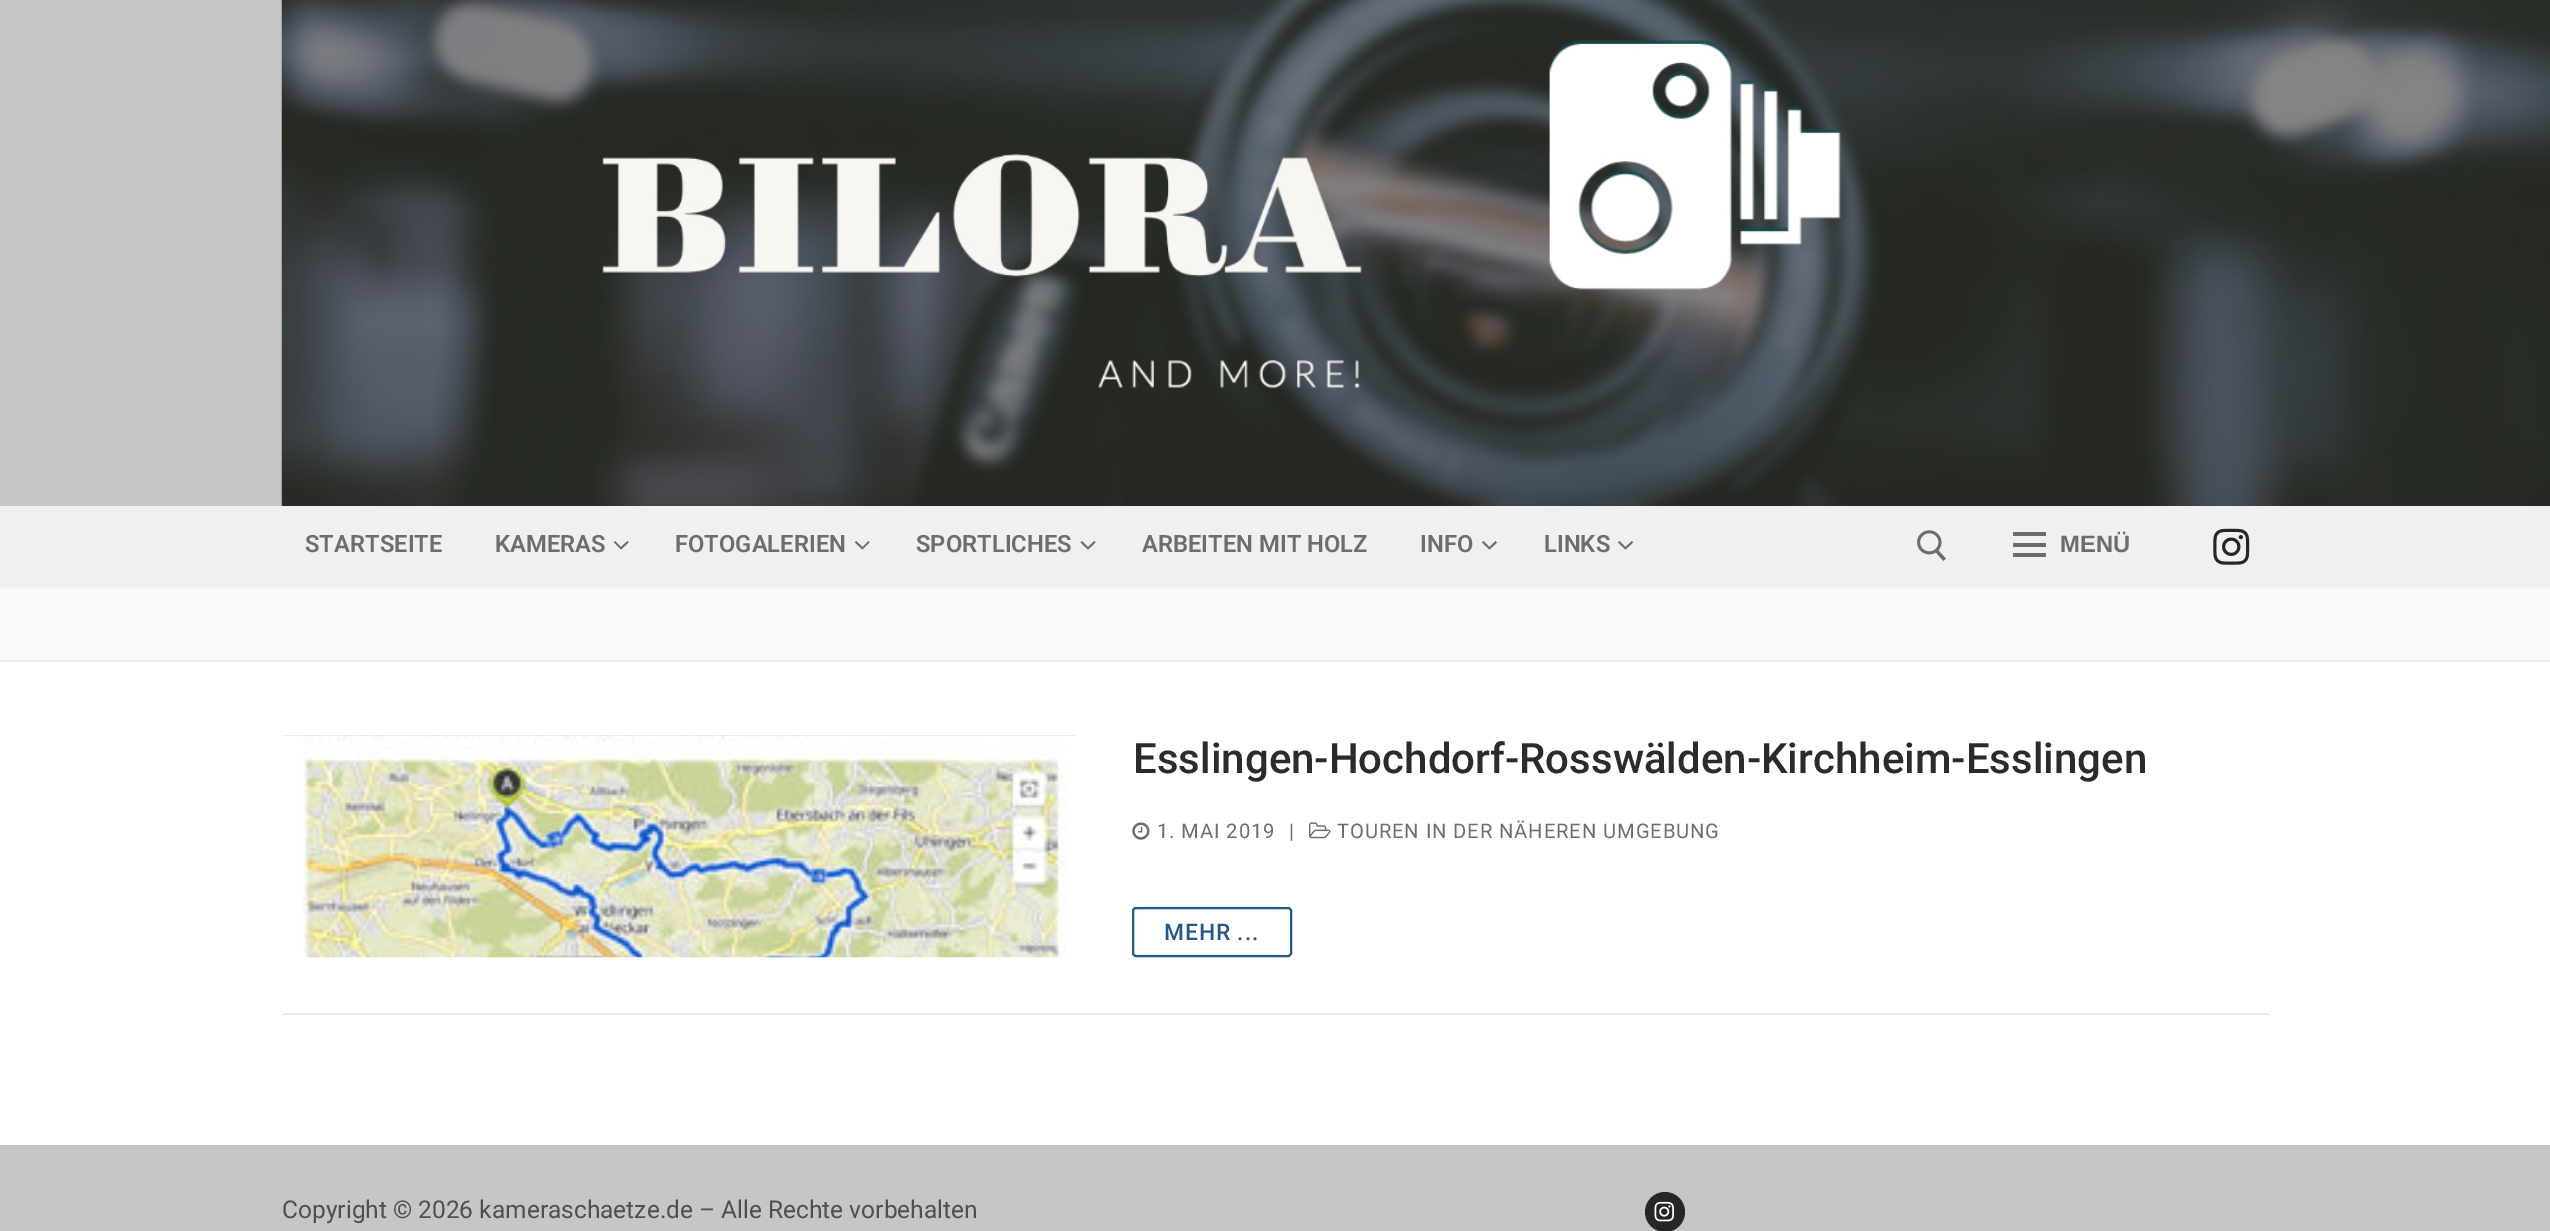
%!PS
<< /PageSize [2550 1231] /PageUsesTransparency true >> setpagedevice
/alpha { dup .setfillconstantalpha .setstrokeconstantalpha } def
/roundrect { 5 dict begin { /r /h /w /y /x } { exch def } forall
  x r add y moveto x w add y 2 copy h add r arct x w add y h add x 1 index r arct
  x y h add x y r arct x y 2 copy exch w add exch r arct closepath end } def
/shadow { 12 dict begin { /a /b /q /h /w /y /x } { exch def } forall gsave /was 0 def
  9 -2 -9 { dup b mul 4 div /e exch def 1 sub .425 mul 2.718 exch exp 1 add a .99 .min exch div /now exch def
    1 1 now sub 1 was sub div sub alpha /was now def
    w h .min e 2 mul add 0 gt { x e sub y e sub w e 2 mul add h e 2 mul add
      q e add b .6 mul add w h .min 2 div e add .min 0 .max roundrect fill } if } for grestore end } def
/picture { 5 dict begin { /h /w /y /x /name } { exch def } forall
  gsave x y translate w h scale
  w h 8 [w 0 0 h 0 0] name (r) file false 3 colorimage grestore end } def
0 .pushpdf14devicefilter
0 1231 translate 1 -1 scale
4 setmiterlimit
1 setgray
0 0 2550 1231 rectfill
0.776 setgray
0 0 282 506 rectfill
0.976 setgray
0 585 2550 75 rectfill
0.882 0.898 0.918 setrgbcolor
0 508 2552 78 0 2 1 shadow
(img1.rgb) 281 0 2269 506 picture
0.941 setgray
0 506 2550 79 rectfill
/Roboto-SemiBold [23.75 0 0 -23.75 0 0] selectfont
0.427 setgray
305 552 moveto (STARTSEITE) show
495 552 moveto (KAMERAS) show
0.424 setgray
newpath 621 549.5 moveto 614 542.5 lineto 615 541 lineto 621 547 lineto closepath 628.5 542.5 moveto 621 549.5 lineto 621 547 lineto 627.5 541 lineto closepath fill
0.427 setgray
675 552 moveto (FOTOGALERIEN) show
0.424 setgray
newpath 862.5 549.5 moveto 855 542.5 lineto 856 541 lineto 862.5 547 lineto closepath fill
0.55 alpha
0 setgray
newpath 869.5 542.5 moveto 862.5 549.5 lineto 862.5 547 lineto 868.5 541 lineto closepath fill
1 alpha
0.427 setgray
916 552 moveto (SPORTLICHES) show
0.424 setgray
newpath 1088 549.5 moveto 1080.5 542.5 lineto 1082 541 lineto 1088 547 lineto closepath 1095.5 542.5 moveto 1088 549.5 lineto 1088 547 lineto 1094.5 541 lineto closepath fill
0.427 setgray
1142 552 moveto (ARBEITEN MIT HOLZ) show
1420 552 moveto (INFO) show
0.424 setgray
newpath 1489.5 549.5 moveto 1482 542.5 lineto 1483.5 541 lineto 1489.5 547 lineto closepath fill
0.55 alpha
0 setgray
newpath 1497 542.5 moveto 1489.5 549.5 lineto 1489.5 547 lineto 1495.5 541 lineto closepath fill
1 alpha
0.427 setgray
1544 552 moveto (LINKS) show
0.424 setgray
newpath 1625.5 549.5 moveto 1618 542.5 lineto 1619.5 541 lineto 1625.5 547 lineto closepath fill
0.55 alpha
0 setgray
newpath 1633 542.5 moveto 1625.5 549.5 lineto 1625.5 547 lineto 1632 541 lineto closepath fill
1 alpha
(img2.rgb) 1917 530 29 31 picture
0.424 setgray
2013 543 33 4 rectfill
2013 532 33 4 rectfill
2013 553 33 4 rectfill
/LiberationSans-Bold [23.75 0 0 -23.75 0 0] selectfont
0.427 setgray
2060 552 moveto (MENÜ) show
(img3.rgb) 2213 528 37 37 picture
0.918 0.925 0.933 setrgbcolor
0 660 2550 2 rectfill
282 1013 1988 2 rectfill
0.835 setgray
282 735 794 1 rectfill
(img4.rgb) 282 735 794 223 picture
/Roboto-Medium [42 0 0 -42 0 0] selectfont
0.169 setgray
1133 773 moveto (Esslingen-Hochdorf-Rosswälden-Kirchheim-Esslingen) show
(img5.rgb) 1132 822 18 18 picture
/Roboto-Regular [20.2 0 0 -20.2 0 0] selectfont
0.427 setgray
1157 838 moveto 0.9 0 (1. MAI 2019) ashow
1289 838 moveto 0.9 0 (|) ashow
(img6.rgb) 1309 822 22 17 picture
1337 838 moveto 0.9 0 (TOUREN IN DER NÄHEREN UMGEBUNG) ashow
0.137 0.341 0.529 setrgbcolor
2 setlinewidth
1133 908 158 48 3 roundrect stroke
/Roboto-Medium [22.75 0 0 -22.75 0 0] selectfont
1164 940 moveto 0.9 0 (MEHR ...) ashow
0.776 setgray
0 1145 2550 86 rectfill
/Roboto-Regular [24.5 0 0 -24.5 0 0] selectfont
0.31 setgray
282 1218 moveto (Copyright © 2026 kameraschaetze.de – Alle Rechte vorbehalten) show
0.149 setgray
newpath 1665 1212 20 0 360 arc closepath fill
(img7.rgb) 1654 1201 20 21 picture
.poppdf14devicefilter showpage
